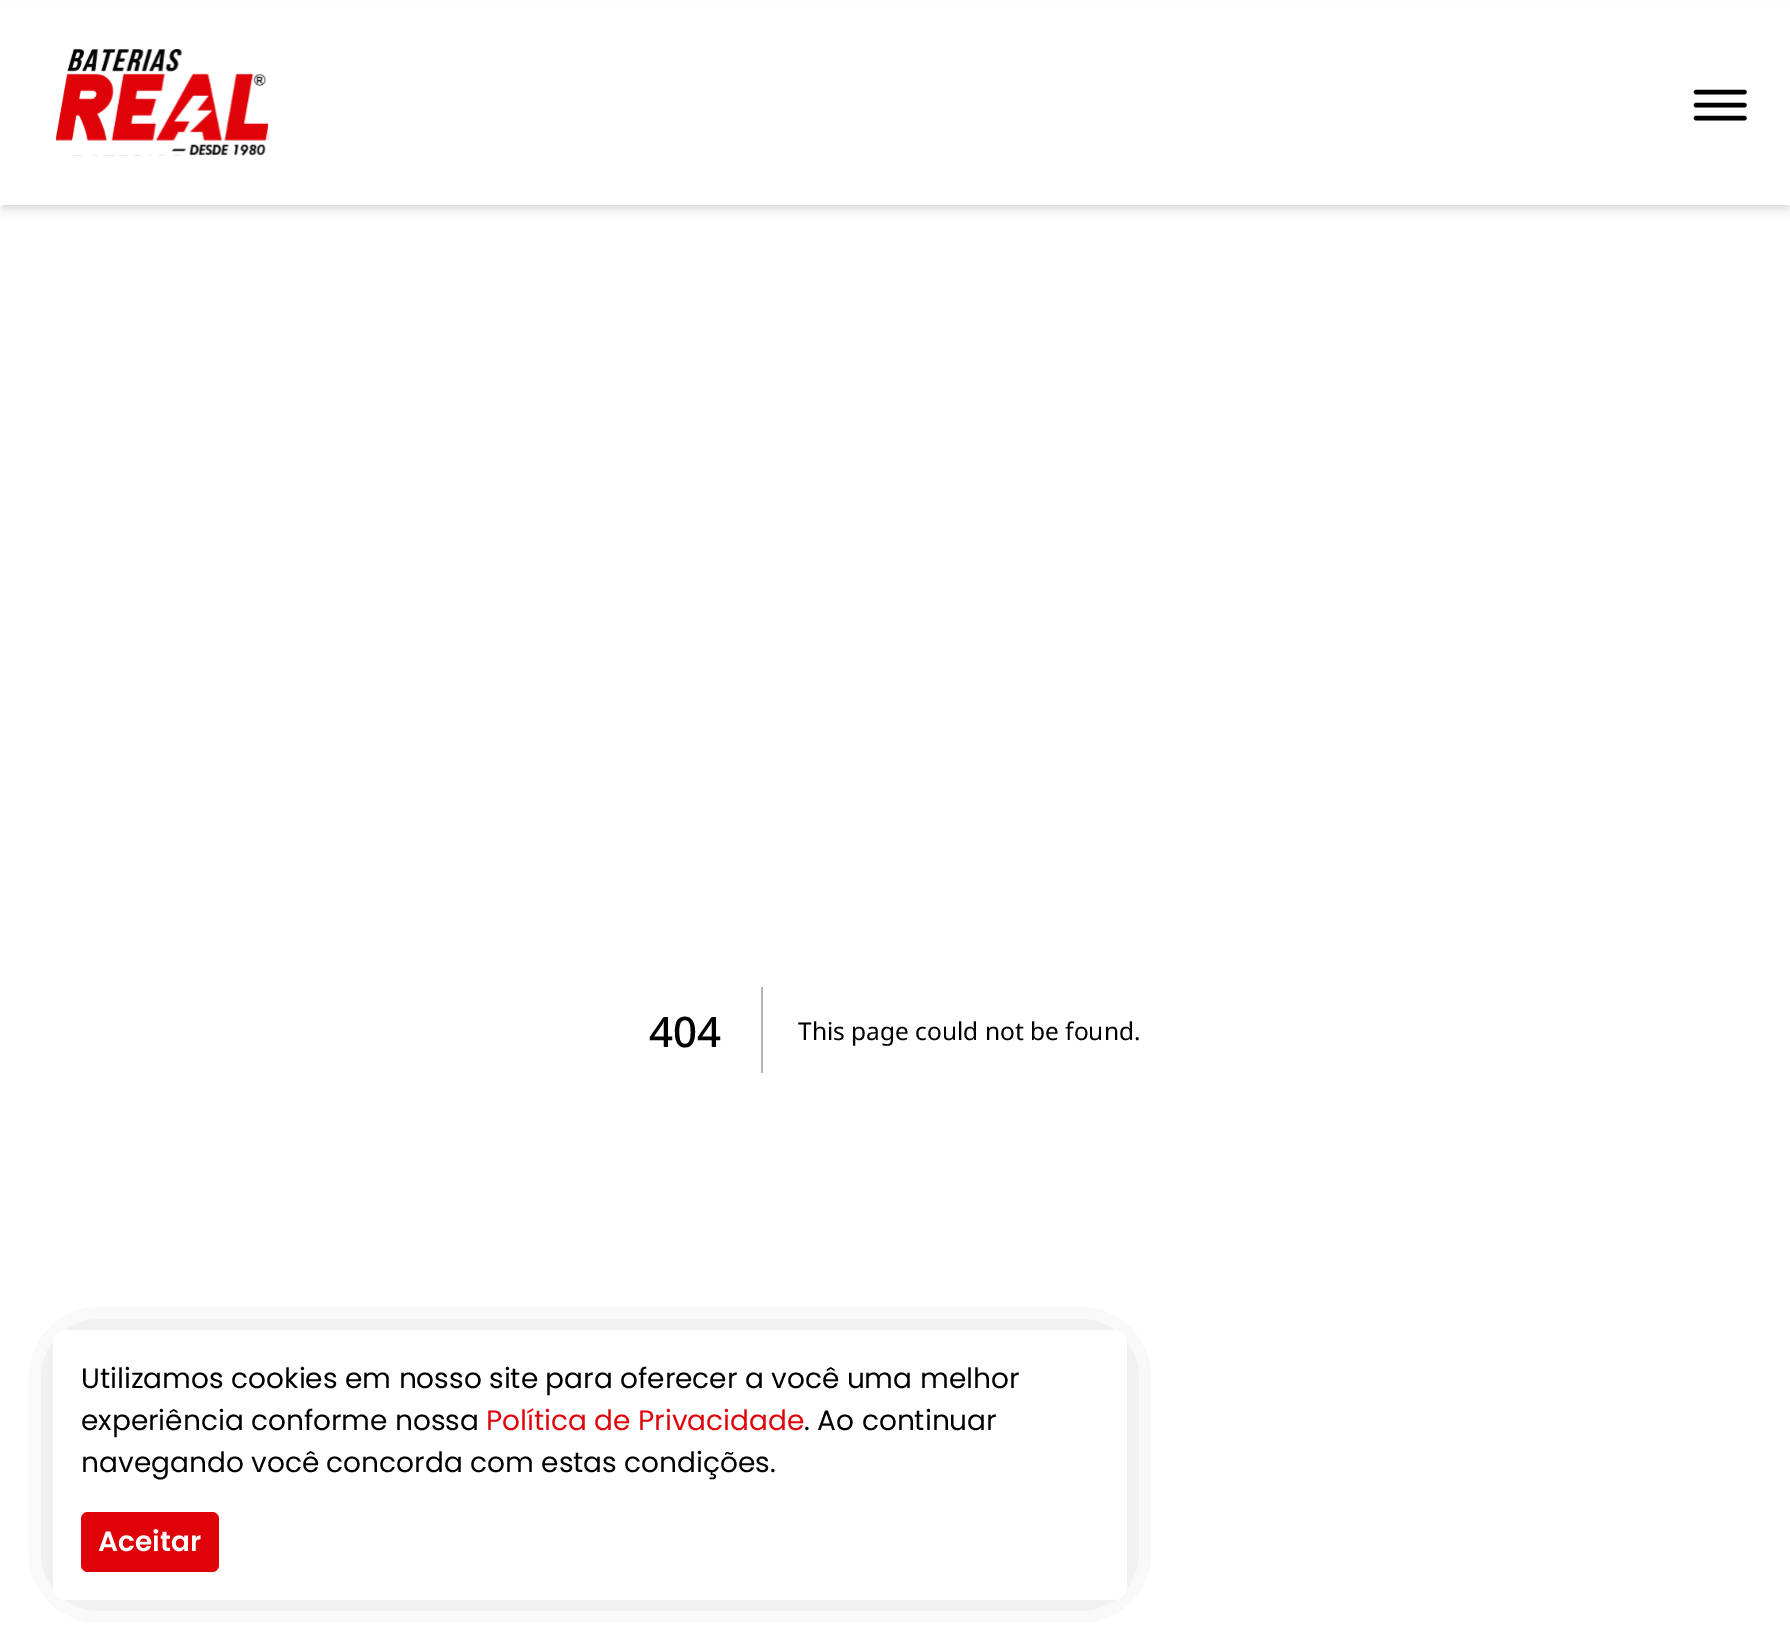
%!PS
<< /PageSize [1790 1652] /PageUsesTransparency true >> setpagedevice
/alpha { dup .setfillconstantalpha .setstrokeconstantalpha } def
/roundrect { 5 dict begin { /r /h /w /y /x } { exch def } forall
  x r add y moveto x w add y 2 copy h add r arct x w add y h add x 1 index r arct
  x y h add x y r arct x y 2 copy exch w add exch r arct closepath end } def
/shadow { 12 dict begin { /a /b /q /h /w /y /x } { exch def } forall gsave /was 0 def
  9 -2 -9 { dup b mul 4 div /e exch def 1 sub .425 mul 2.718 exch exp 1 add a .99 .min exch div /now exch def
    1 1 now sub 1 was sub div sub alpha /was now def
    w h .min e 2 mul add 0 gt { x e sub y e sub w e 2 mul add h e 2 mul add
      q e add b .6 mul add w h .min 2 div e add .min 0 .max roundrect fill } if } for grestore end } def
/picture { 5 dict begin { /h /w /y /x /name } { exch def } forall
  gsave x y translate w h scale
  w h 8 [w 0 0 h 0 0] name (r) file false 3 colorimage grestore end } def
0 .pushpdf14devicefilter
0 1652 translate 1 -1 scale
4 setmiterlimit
1 setgray
0 0 1790 1652 rectfill
0 setgray
4 7 1783 198 0 3.5 0.1 shadow
2 9 1787 201 0 5 0.1 shadow
1 setgray
0 1 1790 204 rectfill
(img1.rgb) 56 49 213 107 picture
0 setgray
4.4 setlinewidth
1 setlinecap
newpath 1696 92 moveto 1744.5 92 lineto 1696 105 moveto 1744.5 105 lineto 1696 118 moveto 1744.5 118 lineto stroke
0.702 setgray
761 987 2 86 rectfill
/NotoSans-Medium [42 0 0 -42 0 0] selectfont
0 setgray
649 1047 moveto (404) show
/NotoSans-Regular [24.5 0 0 -24.5 0 0] selectfont
798 1040 moveto (This page could not be found.) show
84 1362 1012 206 0 24.5 0.75 shadow
1 setgray
53 1330 1074 270 14 roundrect fill
/Poppins-Regular [28 0 0 -28 0 0] selectfont
0 setgray
81 1388 moveto (Utilizamos cookies em nosso site para oferecer a você uma melhor) show
81 1430 moveto (experiência conforme nossa) show
0.875 0.008 0.035 setrgbcolor
486 1430 moveto (Política de Privacidade) show
0 setgray
804 1430 moveto (. Ao continuar) show
81 1472 moveto (navegando você concorda com estas condições.) show
0.875 0.008 0.035 setrgbcolor
81 1512 138 60 7 roundrect fill
/Poppins-SemiBold [28 0 0 -28 0 0] selectfont
1 setgray
98 1551 moveto (Aceitar) show
.poppdf14devicefilter showpage
